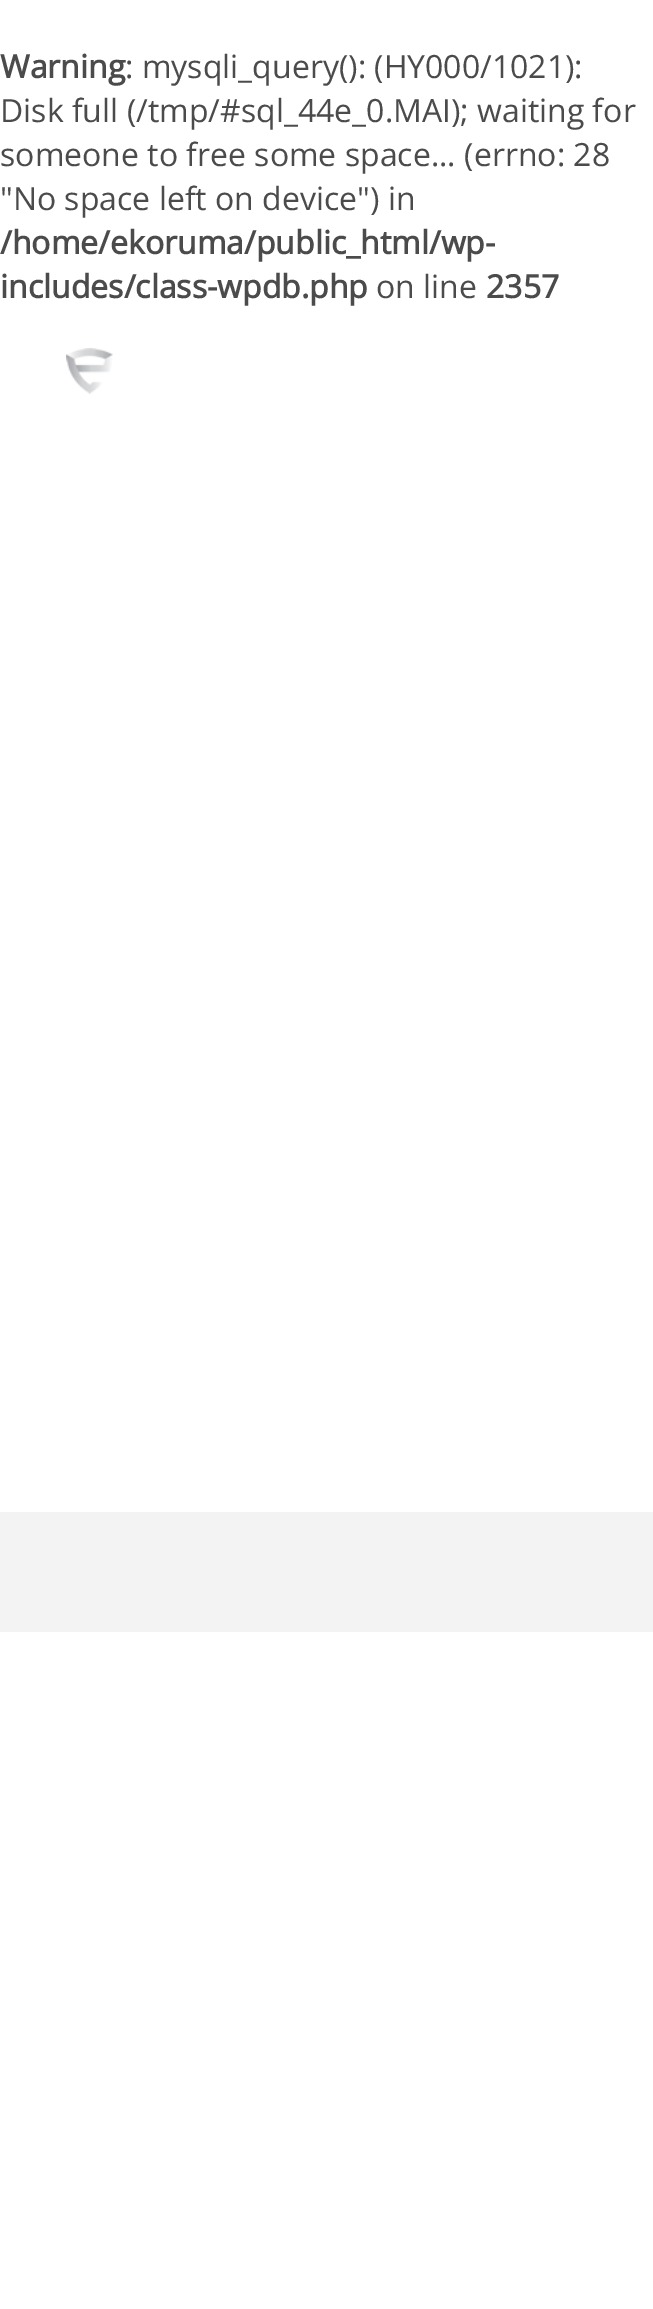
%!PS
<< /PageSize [653 2309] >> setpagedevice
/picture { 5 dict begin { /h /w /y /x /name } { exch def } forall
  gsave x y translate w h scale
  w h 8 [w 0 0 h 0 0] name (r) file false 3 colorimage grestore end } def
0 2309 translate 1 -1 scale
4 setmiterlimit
1 setgray
0 0 653 2309 rectfill
/OpenSans-Bold [32 0 0 -32 0 0] selectfont
0.294 setgray
0 78 moveto (Warning) show
/OpenSans-Regular [32 0 0 -32 0 0] selectfont
125 78 moveto (: mysqli_query\(\): \(HY000/1021\):) show
0 122 moveto (Disk full \(/tmp/#sql_44e_0.MAI\); waiting for) show
0 166 moveto (someone to free some space... \(errno: 28) show
0 210 moveto ("No space left on device"\) in) show
/OpenSans-Bold [32 0 0 -32 0 0] selectfont
0 254 moveto (/home/ekoruma/public_html/wp-) show
0 298 moveto (includes/class-wpdb.php) show
/OpenSans-Regular [32 0 0 -32 0 0] selectfont
376 298 moveto (on line) show
/OpenSans-Bold [32 0 0 -32 0 0] selectfont
486 298 moveto (2357) show
(img1.rgb) 66 348 47 46 picture
0.953 setgray
0 1512 653 120 rectfill
showpage
